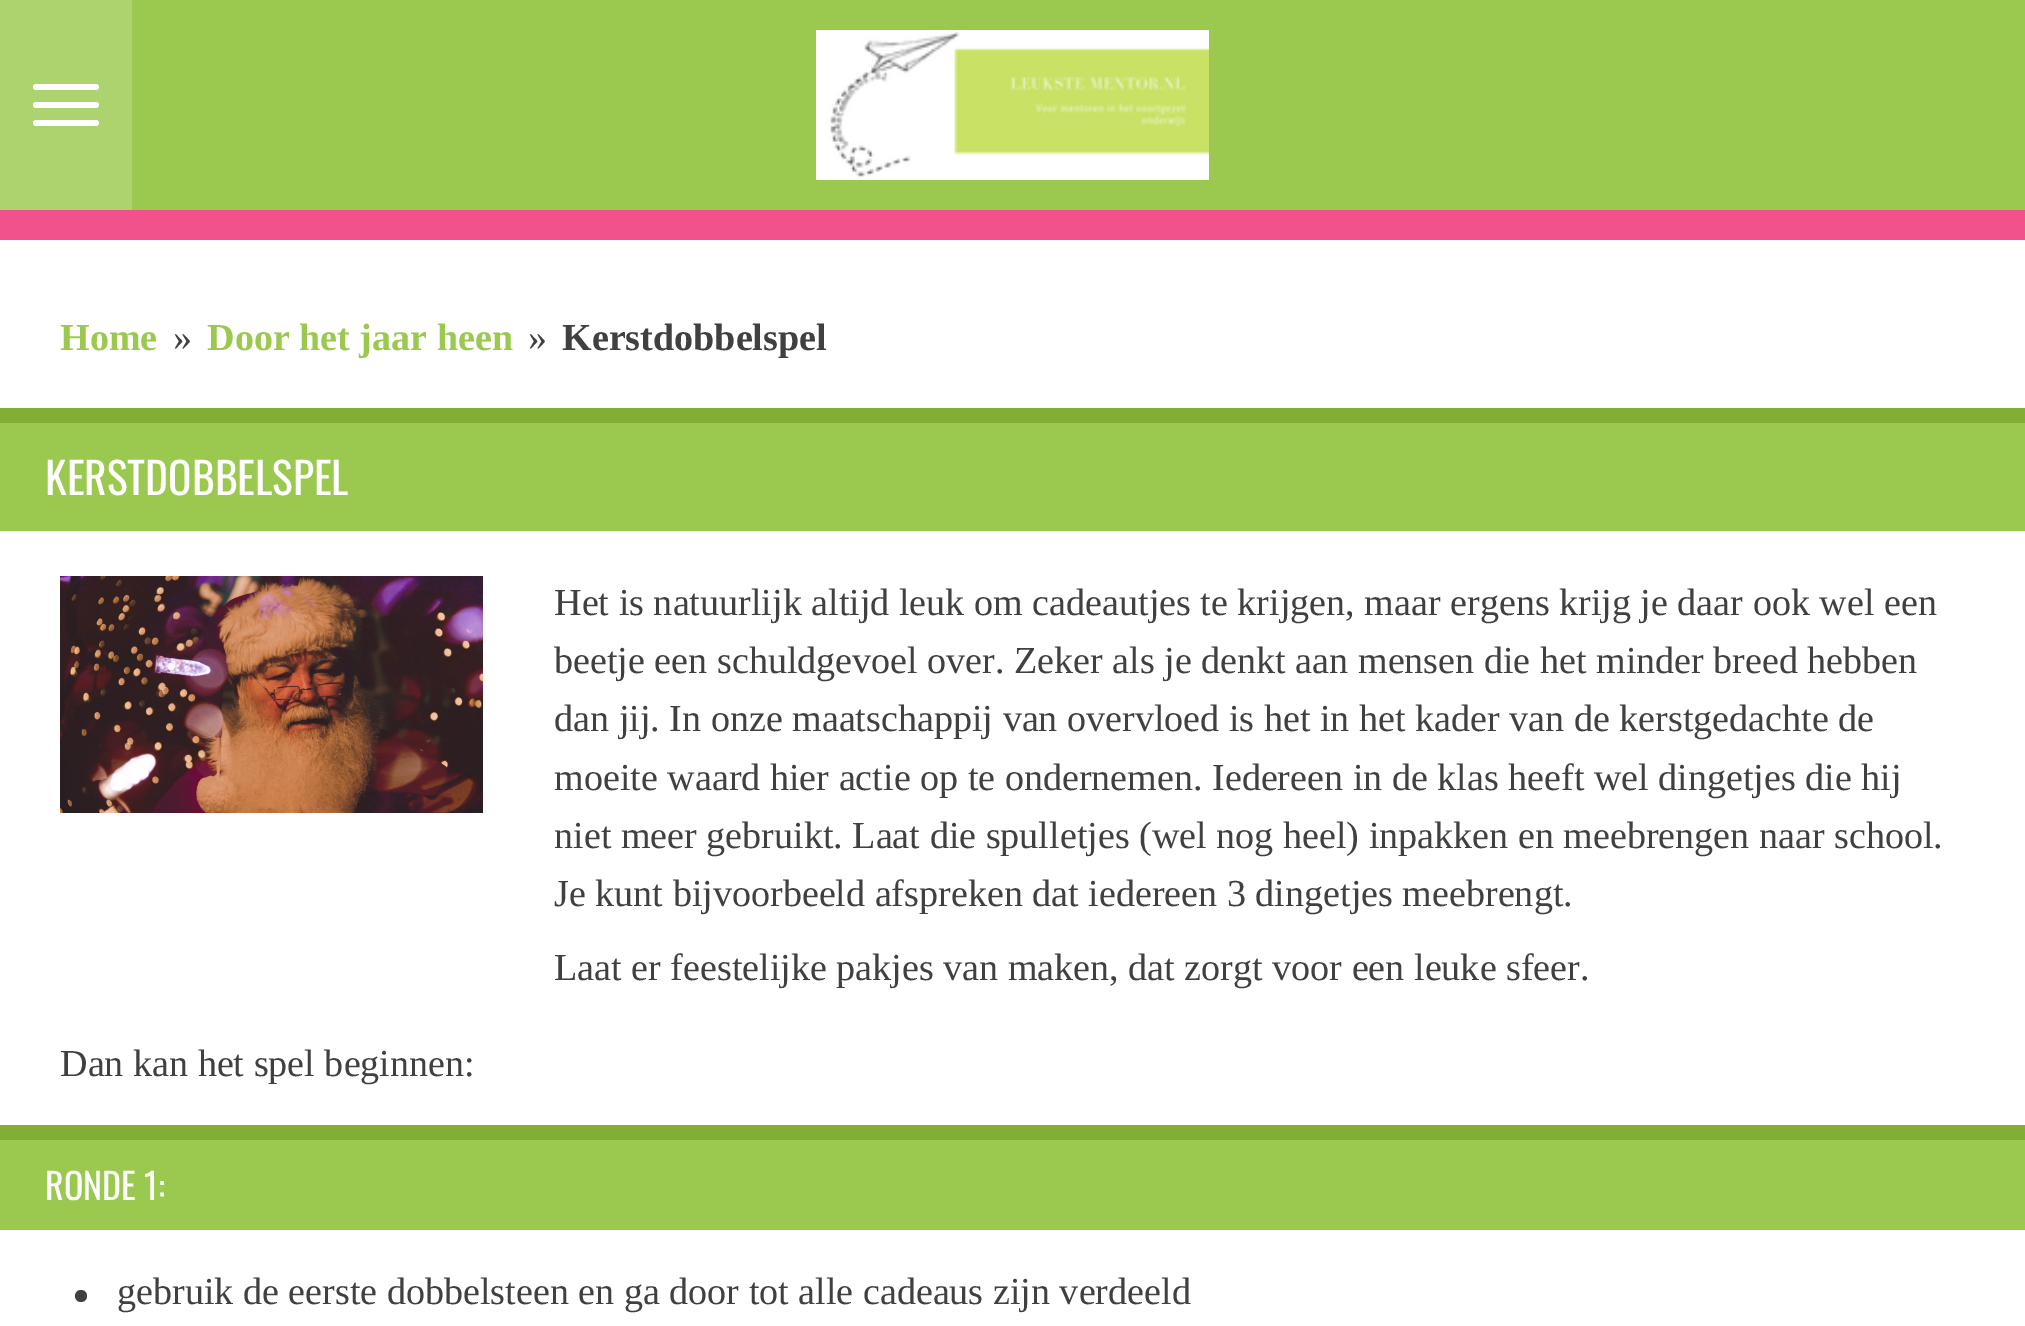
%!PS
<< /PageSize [2025 1326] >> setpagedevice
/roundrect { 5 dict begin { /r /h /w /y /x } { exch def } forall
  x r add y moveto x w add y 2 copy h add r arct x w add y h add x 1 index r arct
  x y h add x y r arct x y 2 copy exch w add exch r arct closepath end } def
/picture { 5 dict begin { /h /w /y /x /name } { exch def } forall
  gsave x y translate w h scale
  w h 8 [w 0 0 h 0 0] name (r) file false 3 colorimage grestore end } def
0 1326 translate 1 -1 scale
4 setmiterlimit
0.949 0.322 0.549 setrgbcolor
0 0 2025 1326 rectfill
0.678 0.827 0.431 setrgbcolor
0 0 132 210 rectfill
1 setgray
33 102 66 6 3 roundrect fill
33 84 66 6 3 roundrect fill
33 120 66 6 3 roundrect fill
0.608 0.788 0.31 setrgbcolor
132 0 1893 210 rectfill
(img1.rgb) 816 30 393 150 picture
1 setgray
0 240 2025 1086 rectfill
/LiberationSerif-Bold [38.1 0 0 -38.1 0 0] selectfont
0.608 0.788 0.31 setrgbcolor
60 350 moveto (Home) show
/LiberationSerif-Regular [38.1 0 0 -38.1 0 0] selectfont
0.251 setgray
173 350 moveto (») show
/LiberationSerif-Bold [38.1 0 0 -38.1 0 0] selectfont
0.608 0.788 0.31 setrgbcolor
207 350 moveto (Door het jaar heen) show
/LiberationSerif-Regular [38.1 0 0 -38.1 0 0] selectfont
0.251 setgray
528 350 moveto (») show
/LiberationSerif-Bold [38.1 0 0 -38.1 0 0] selectfont
562 350 moveto (Kerstdobbelspel) show
0.608 0.788 0.31 setrgbcolor
0 423 2025 108 rectfill
0.506 0.686 0.212 setrgbcolor
0 408 2025 15 rectfill
/Oswald-Regular [43.5 0 0 -43.5 0 0] selectfont
1 setgray
45 495 moveto (KERSTDOBBELSPEL) show
(img2.rgb) 60 576 423 237 picture
/LiberationSerif-Regular [38.1 0 0 -38.1 0 0] selectfont
0.251 setgray
554 615 moveto (Het is natuurlijk altijd leuk om cadeautjes te krijgen, maar ergens krijg je daar ook wel een) show
554 673 moveto (beetje een schuldgevoel over. Zeker als je denkt aan mensen die het minder breed hebben) show
554 731 moveto (dan jij. In onze maatschappij van overvloed is het in het kader van de kerstgedachte de) show
554 790 moveto (moeite waard hier actie op te ondernemen. Iedereen in de klas heeft wel dingetjes die hij) show
554 848 moveto (niet meer gebruikt. Laat die spulletjes \(wel nog heel\) inpakken en meebrengen naar school.) show
554 906 moveto (Je kunt bijvoorbeeld afspreken dat iedereen 3 dingetjes meebrengt.) show
554 980 moveto (Laat er feestelijke pakjes van maken, dat zorgt voor een leuke sfeer.) show
60 1076 moveto (Dan kan het spel beginnen:) show
0.608 0.788 0.31 setrgbcolor
0 1140 2025 90 rectfill
0.506 0.686 0.212 setrgbcolor
0 1125 2025 15 rectfill
/Oswald-Regular [36 0 0 -36 0 0] selectfont
1 setgray
45 1200 moveto (RONDE 1:) show
0.251 setgray
newpath 81 1296 6 0 360 arc closepath fill
/LiberationSerif-Regular [38.1 0 0 -38.1 0 0] selectfont
117 1304 moveto (gebruik de eerste dobbelsteen en ga door tot alle cadeaus zijn verdeeld) show
showpage
